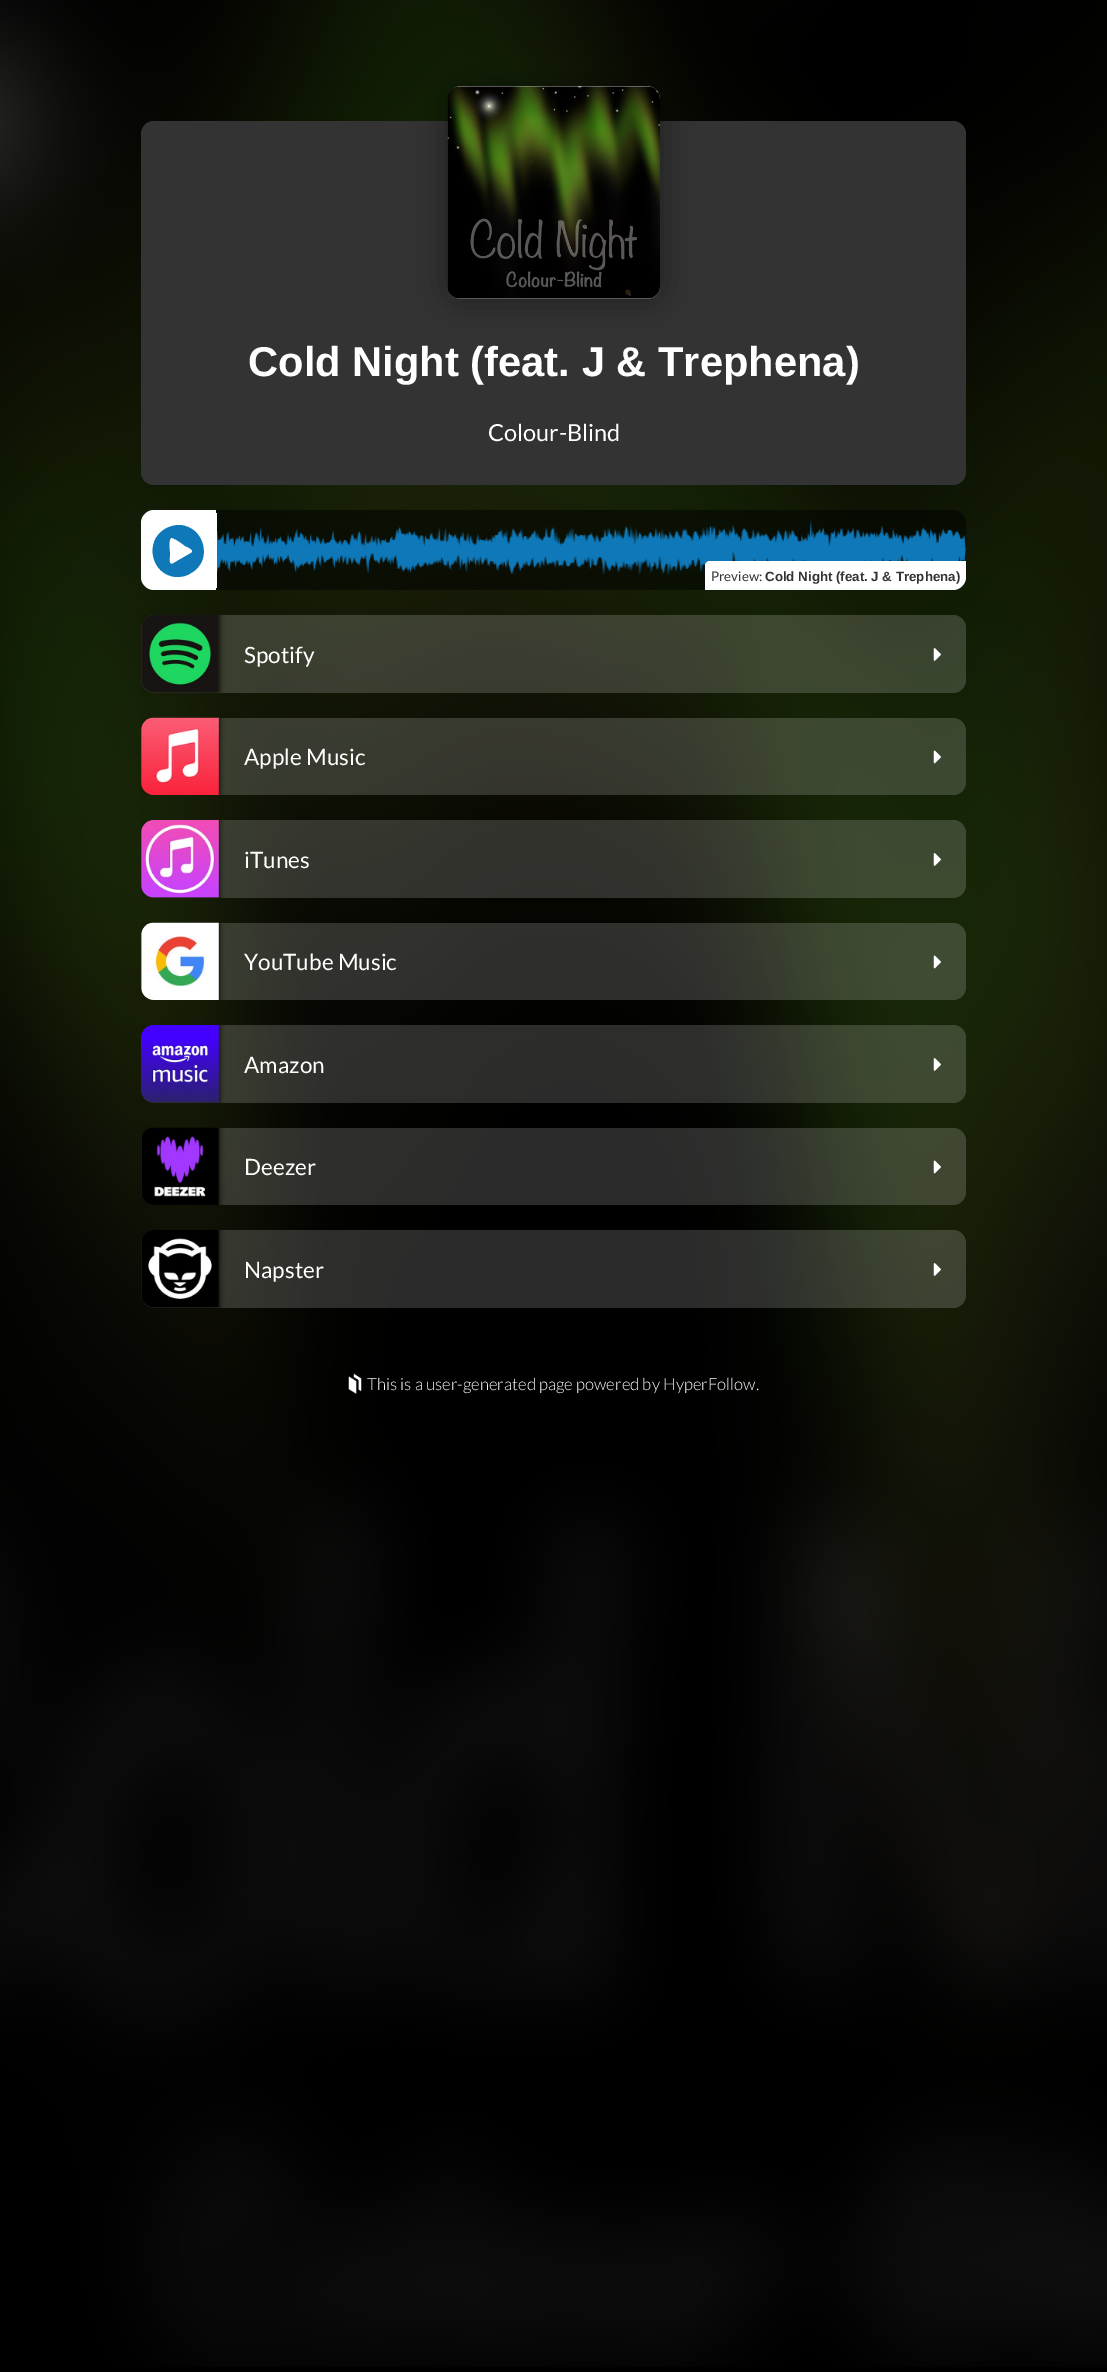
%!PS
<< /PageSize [1107 2372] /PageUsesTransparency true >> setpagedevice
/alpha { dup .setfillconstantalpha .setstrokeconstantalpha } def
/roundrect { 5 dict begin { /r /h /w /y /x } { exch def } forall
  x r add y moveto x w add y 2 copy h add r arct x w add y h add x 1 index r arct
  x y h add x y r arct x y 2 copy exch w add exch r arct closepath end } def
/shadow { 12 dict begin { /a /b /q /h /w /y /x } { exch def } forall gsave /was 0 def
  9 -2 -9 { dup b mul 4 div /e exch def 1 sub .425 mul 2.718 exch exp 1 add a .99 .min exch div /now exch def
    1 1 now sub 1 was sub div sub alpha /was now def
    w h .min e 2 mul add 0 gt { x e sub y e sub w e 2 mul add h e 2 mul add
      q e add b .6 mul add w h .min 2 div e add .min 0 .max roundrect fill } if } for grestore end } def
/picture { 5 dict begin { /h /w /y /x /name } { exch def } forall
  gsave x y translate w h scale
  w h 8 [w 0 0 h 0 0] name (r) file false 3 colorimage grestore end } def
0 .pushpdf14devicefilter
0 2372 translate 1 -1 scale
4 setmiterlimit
0 setgray
0 0 1107 2372 rectfill
(img1.rgb) 0 0 1107 2367 picture
0.2 setgray
141 121 825 364 13 roundrect fill
0 setgray
448 86 212 213 13 15.5 0.35 shadow
0.8 setgray
448 86 212 213 13 roundrect fill
(img2.rgb) 447 86 213 213 picture
/LiberationSans-Bold [41.7 0 0 -41.7 0 0] selectfont
1 setgray
248 376 moveto (Cold Night \(feat. J & Trephena\)) show
/Lato-Regular [23.5 0 0 -23.5 0 0] selectfont
488 441 moveto (Colour-Blind) show
newpath 154 510 moveto 216 510 lineto 216 590 lineto 154 590 lineto 147 590 141 584 141 577 curveto 141 523 lineto 141 516 147 510 154 510 curveto closepath fill
0.059 0.471 0.722 setrgbcolor
newpath 165 529 moveto 170 526 175 525 180 525 curveto 205 527 213 561 191 573 curveto 187 576 182 577 176 577 curveto 151 575 144 541 165 529 curveto closepath 191 553 moveto 196 550 185 546 185 546 curveto 183 544 173 537 171 538 curveto 168 540 170 552 170 555 curveto 170 556 168 564 172 564 curveto closepath fill
0.5 alpha
0 setgray
newpath 216 510 moveto 953 510 lineto 960 510 966 516 966 523 curveto 966 577 lineto 966 584 960 590 953 590 curveto 216 590 lineto closepath fill
1 alpha
1 setgray
216 513 1 75 rectfill
(img3.rgb) 217 520 750 55 picture
newpath 710 561 moveto 966 561 lineto 966 577 lineto 966 584 960 590 953 590 curveto 705 590 lineto 705 566 lineto 705 563 707 561 710 561 curveto closepath fill
/Lato-Regular [13.3 0 0 -13.3 0 0] selectfont
0.2 setgray
711 581 moveto (Preview:) show
/LiberationSans-Bold [13.3 0 0 -13.3 0 0] selectfont
765 581 moveto (Cold Night \(feat. J & Trephena\)) show
0.17 alpha
1 setgray
141 615 825 78 13 roundrect fill
gsave
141 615 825 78 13 roundrect clip newpath
1 alpha
0 setgray
141 615 78 78 0 3 1 shadow
grestore
1 alpha
(img4.rgb) 141 615 78 78 picture
/Lato-Regular [22.5 0 0 -22.5 0 0] selectfont
244 663 moveto (Spotify) show
(img5.rgb) 933 648 8 13 picture
0.17 alpha
141 718 825 77 13 roundrect fill
gsave
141 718 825 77 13 roundrect clip newpath
1 alpha
0 setgray
141 718 78 77 0 3 1 shadow
grestore
1 alpha
(img6.rgb) 141 717 78 78 picture
244 765 moveto (Apple Music) show
(img7.rgb) 933 750 8 14 picture
0.17 alpha
141 820 825 78 13 roundrect fill
gsave
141 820 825 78 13 roundrect clip newpath
1 alpha
0 setgray
141 820 78 78 0 3 1 shadow
grestore
1 alpha
(img8.rgb) 141 820 78 78 picture
244 868 moveto (iTunes) show
(img9.rgb) 933 853 8 13 picture
0.17 alpha
141 923 825 77 13 roundrect fill
gsave
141 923 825 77 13 roundrect clip newpath
1 alpha
0 setgray
141 923 78 77 0 3 1 shadow
grestore
1 alpha
(img10.rgb) 141 922 78 78 picture
244 970 moveto (YouTube Music) show
(img11.rgb) 933 955 8 14 picture
0.17 alpha
141 1025 825 78 13 roundrect fill
gsave
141 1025 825 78 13 roundrect clip newpath
1 alpha
0 setgray
141 1025 78 78 0 3 1 shadow
grestore
1 alpha
(img12.rgb) 141 1025 78 78 picture
244 1073 moveto (Amazon) show
(img13.rgb) 933 1058 8 13 picture
0.17 alpha
141 1128 825 77 13 roundrect fill
gsave
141 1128 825 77 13 roundrect clip newpath
1 alpha
0 setgray
141 1128 78 77 0 3 1 shadow
grestore
1 alpha
(img14.rgb) 141 1127 78 78 picture
244 1175 moveto (Deezer) show
(img15.rgb) 933 1160 8 14 picture
0.17 alpha
141 1230 825 78 13 roundrect fill
gsave
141 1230 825 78 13 roundrect clip newpath
1 alpha
0 setgray
141 1230 78 78 0 3 1 shadow
grestore
1 alpha
(img16.rgb) 141 1230 78 78 picture
244 1278 moveto (Napster) show
(img17.rgb) 933 1263 8 13 picture
(img18.rgb) 348 1373 14 21 picture
/Lato-Light [16.7 0 0 -16.7 0 0] selectfont
367 1390 moveto (This is a user-generated page powered by HyperFollow.) show
.poppdf14devicefilter showpage
